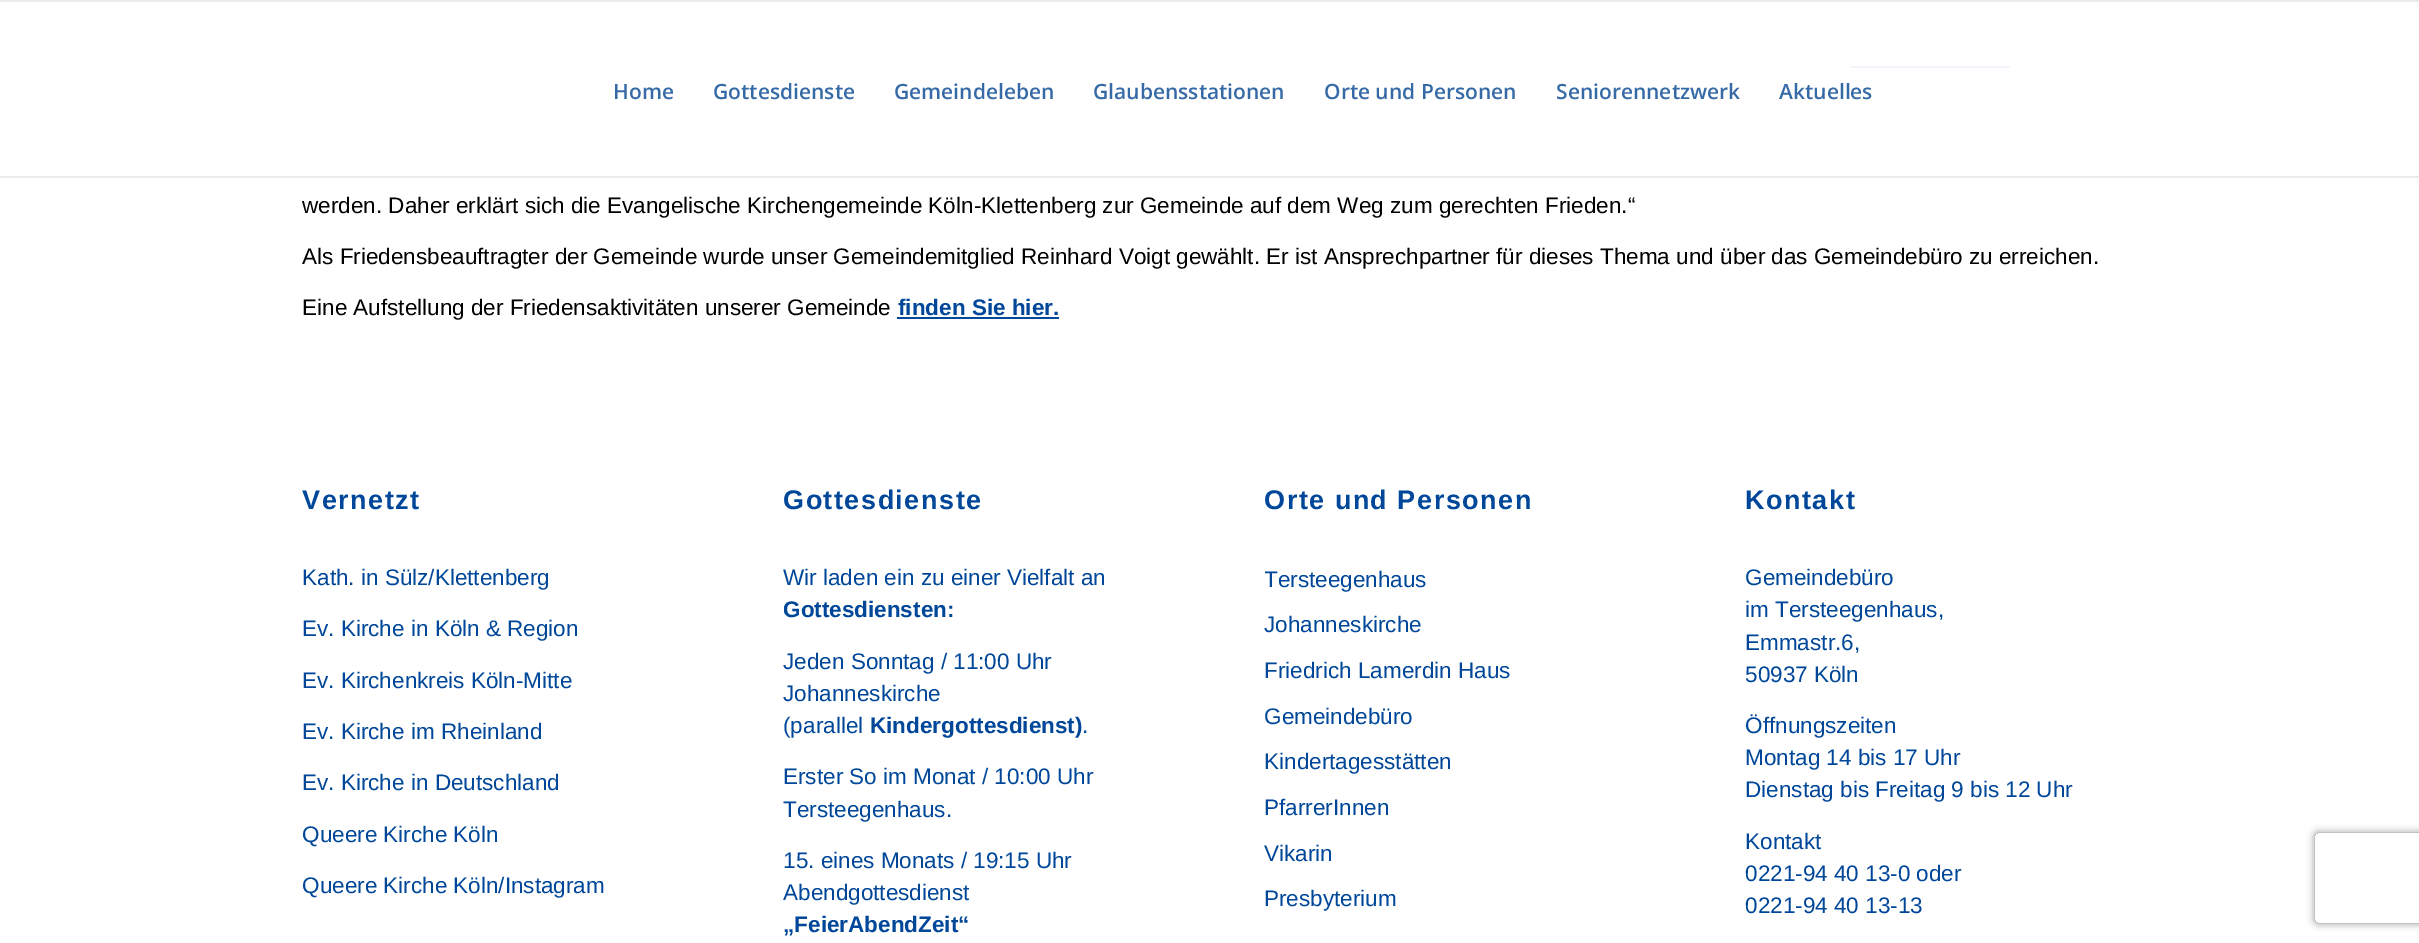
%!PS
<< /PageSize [2419 943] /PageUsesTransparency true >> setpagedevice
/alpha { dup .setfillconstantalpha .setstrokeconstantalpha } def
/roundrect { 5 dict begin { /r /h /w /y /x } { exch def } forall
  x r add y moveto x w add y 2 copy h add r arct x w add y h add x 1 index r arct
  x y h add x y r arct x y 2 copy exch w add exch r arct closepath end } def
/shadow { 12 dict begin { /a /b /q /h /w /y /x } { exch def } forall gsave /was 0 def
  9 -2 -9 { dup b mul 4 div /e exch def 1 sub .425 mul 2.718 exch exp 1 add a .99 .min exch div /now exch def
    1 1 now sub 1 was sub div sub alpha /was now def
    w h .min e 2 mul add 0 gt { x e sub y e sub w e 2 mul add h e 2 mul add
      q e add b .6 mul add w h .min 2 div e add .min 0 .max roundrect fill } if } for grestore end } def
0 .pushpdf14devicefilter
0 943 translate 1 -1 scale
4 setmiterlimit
1 setgray
0 0 2419 943 rectfill
0 0.282 0.6 setrgbcolor
1850 66 160 2 rectfill
0.95 alpha
1 setgray
1850 66 160 2 rectfill
1 alpha
0.922 setgray
0 0 2419 2 rectfill
0 176 2419 2 rectfill
/OpenSans-SemiBold [21 0 0 -21 0 0] selectfont
0.208 0.416 0.651 setrgbcolor
613 99 moveto (Home) show
713 99 moveto (Gottesdienste) show
894 99 moveto (Gemeindeleben) show
1093 99 moveto (Glaubensstationen) show
1324 99 moveto (Orte und Personen) show
1556 99 moveto (Seniorennetzwerk) show
1779 99 moveto (Aktuelles) show
/LiberationSans-Regular [22.5 0 0 -22.5 0 0] selectfont
0 setgray
302 213 moveto (werden. Daher erklärt sich die Evangelische Kirchengemeinde Köln-Klettenberg zur Gemeinde auf dem Weg zum gerechten Frieden.“) show
302 264 moveto (Als Friedensbeauftragter der Gemeinde wurde unser Gemeindemitglied Reinhard Voigt gewählt. Er ist Ansprechpartner für dieses Thema und über das Gemeindebüro zu erreichen.) show
302 315 moveto (Eine Aufstellung der Friedensaktivitäten unserer Gemeinde) show
/LiberationSans-Bold [22.5 0 0 -22.5 0 0] selectfont
0 0.278 0.6 setrgbcolor
898 315 moveto (finden Sie hier.) show
0 0.282 0.6 setrgbcolor
897 317 162 2 rectfill
/LiberationSans-Bold [27 0 0 -27 0 0] selectfont
0 0.278 0.6 setrgbcolor
302 509 moveto 1.5 0 (Vernetzt) ashow
/LiberationSans-Regular [22.5 0 0 -22.5 0 0] selectfont
302 585 moveto (Kath. in Sülz/Klettenberg) show
302 636 moveto (Ev. Kirche in Köln & Region) show
302 688 moveto (Ev. Kirchenkreis Köln-Mitte) show
302 739 moveto (Ev. Kirche im Rheinland) show
302 790 moveto (Ev. Kirche in Deutschland) show
302 842 moveto (Queere Kirche Köln) show
302 893 moveto (Queere Kirche Köln/Instagram) show
/LiberationSans-Bold [27 0 0 -27 0 0] selectfont
783 509 moveto 1.5 0 (Gottesdienste) ashow
/LiberationSans-Regular [22.5 0 0 -22.5 0 0] selectfont
783 585 moveto (Wir laden ein zu einer Vielfalt an) show
/LiberationSans-Bold [22.5 0 0 -22.5 0 0] selectfont
783 617 moveto (Gottesdiensten) show
947 617 moveto (:) show
/LiberationSans-Regular [22.5 0 0 -22.5 0 0] selectfont
783 669 moveto (Jeden Sonntag / 11:00 Uhr) show
783 701 moveto (Johanneskirche) show
783 733 moveto (\(parallel) show
/LiberationSans-Bold [22.5 0 0 -22.5 0 0] selectfont
870 733 moveto (Kindergottesdienst) show
1075 733 moveto (\)) show
/LiberationSans-Regular [22.5 0 0 -22.5 0 0] selectfont
1082 733 moveto (.) show
783 784 moveto (Erster So im Monat / 10:00 Uhr) show
783 817 moveto (Tersteegenhaus.) show
783 868 moveto (15. eines Monats / 19:15 Uhr) show
783 900 moveto (Abendgottesdienst) show
/LiberationSans-Bold [22.5 0 0 -22.5 0 0] selectfont
783 932 moveto („FeierAbendZeit“) show
/LiberationSans-Bold [27 0 0 -27 0 0] selectfont
1264 509 moveto 1.5 0 (Orte und Personen) ashow
gsave
1265 486 372 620 rectclip
/LiberationSans-Regular [22.5 0 0 -22.5 0 0] selectfont
1264 587 moveto (Tersteegenhaus) show
grestore
/LiberationSans-Regular [22.5 0 0 -22.5 0 0] selectfont
1264 632 moveto (Johanneskirche) show
1264 678 moveto (Friedrich Lamerdin Haus) show
1264 724 moveto (Gemeindebüro) show
1264 769 moveto (Kindertagesstätten) show
1264 815 moveto (PfarrerInnen) show
1264 861 moveto (Vikarin) show
1264 906 moveto (Presbyterium) show
/LiberationSans-Bold [27 0 0 -27 0 0] selectfont
1745 509 moveto 1.5 0 (Kontakt) ashow
/LiberationSans-Regular [22.5 0 0 -22.5 0 0] selectfont
1745 585 moveto (Gemeindebüro) show
1745 617 moveto (im Tersteegenhaus,) show
1745 650 moveto (Emmastr.6,) show
1745 682 moveto (50937 Köln) show
1745 733 moveto (Öffnungszeiten) show
1745 765 moveto (Montag 14 bis 17 Uhr) show
1745 797 moveto (Dienstag bis Freitag 9 bis 12 Uhr) show
1745 849 moveto (Kontakt) show
1745 881 moveto (0221-94 40 13-0 oder) show
1745 913 moveto (0221-94 40 13-13) show
gsave
newpath 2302 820 moveto 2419 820 lineto 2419 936 lineto 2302 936 lineto closepath 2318 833 moveto 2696 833 lineto 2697.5 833 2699 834.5 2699 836 curveto 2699 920 lineto 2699 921.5 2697.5 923 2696 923 curveto 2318 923 lineto 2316.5 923 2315 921.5 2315 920 curveto 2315 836 lineto 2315 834.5 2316.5 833 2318 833 curveto closepath eoclip newpath
0.502 setgray
2315 833 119 90 3 4 1 shadow
grestore
.poppdf14devicefilter showpage
